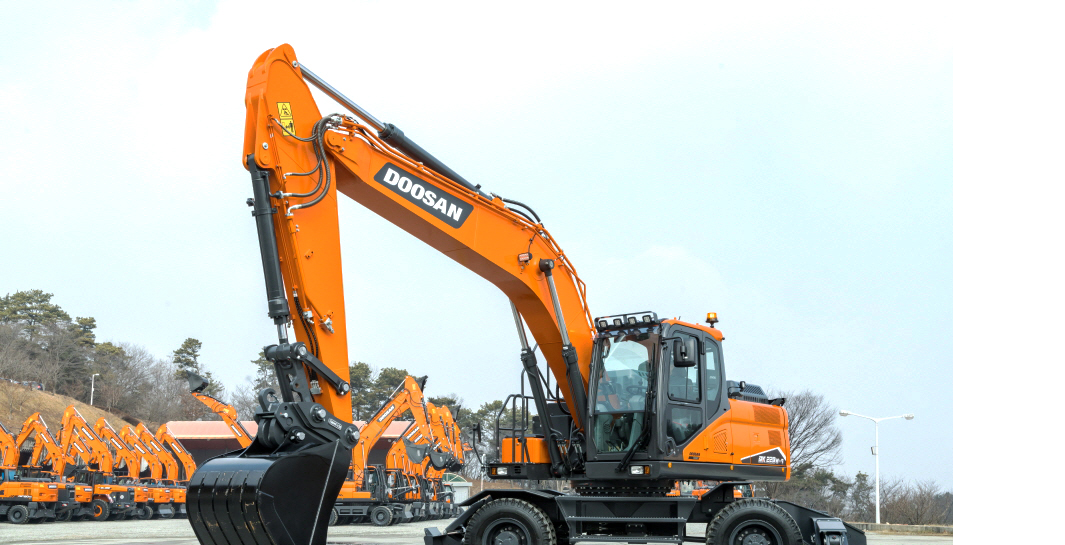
%!PS
<< /PageSize [1065 545] >> setpagedevice
/picture { 5 dict begin { /h /w /y /x /name } { exch def } forall
  gsave x y translate w h scale
  w h 8 [w 0 0 h 0 0] name (r) file false 3 colorimage grestore end } def
0 545 translate 1 -1 scale
4 setmiterlimit
1 setgray
0 0 1065 545 rectfill
(img1.rgb) 0 0 953 545 picture
showpage
